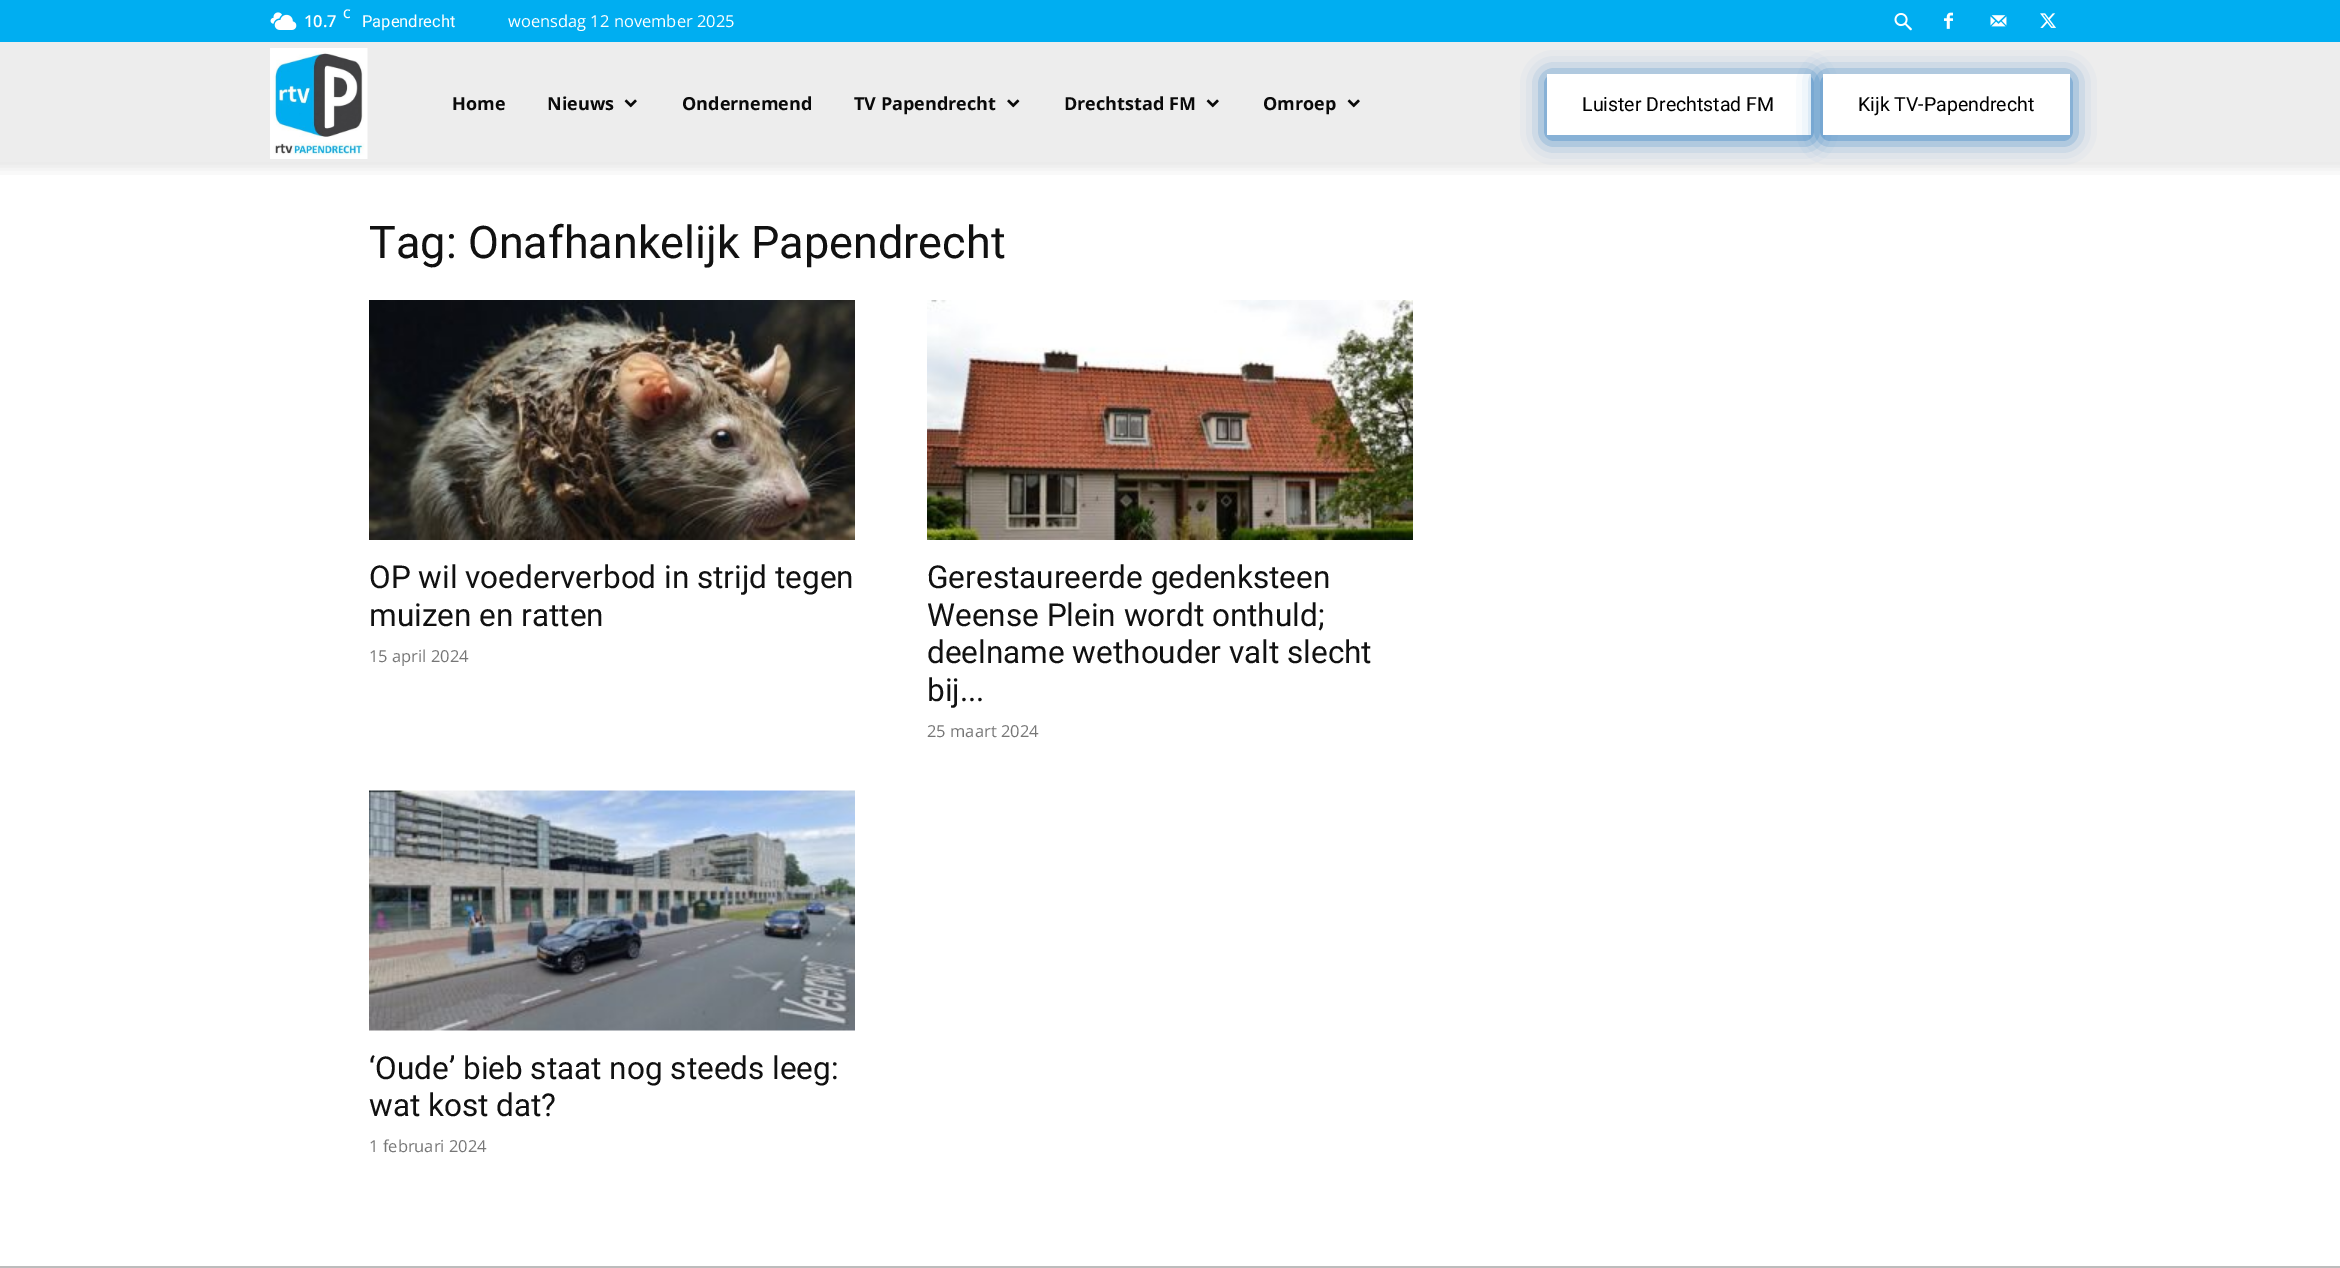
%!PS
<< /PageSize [2340 1268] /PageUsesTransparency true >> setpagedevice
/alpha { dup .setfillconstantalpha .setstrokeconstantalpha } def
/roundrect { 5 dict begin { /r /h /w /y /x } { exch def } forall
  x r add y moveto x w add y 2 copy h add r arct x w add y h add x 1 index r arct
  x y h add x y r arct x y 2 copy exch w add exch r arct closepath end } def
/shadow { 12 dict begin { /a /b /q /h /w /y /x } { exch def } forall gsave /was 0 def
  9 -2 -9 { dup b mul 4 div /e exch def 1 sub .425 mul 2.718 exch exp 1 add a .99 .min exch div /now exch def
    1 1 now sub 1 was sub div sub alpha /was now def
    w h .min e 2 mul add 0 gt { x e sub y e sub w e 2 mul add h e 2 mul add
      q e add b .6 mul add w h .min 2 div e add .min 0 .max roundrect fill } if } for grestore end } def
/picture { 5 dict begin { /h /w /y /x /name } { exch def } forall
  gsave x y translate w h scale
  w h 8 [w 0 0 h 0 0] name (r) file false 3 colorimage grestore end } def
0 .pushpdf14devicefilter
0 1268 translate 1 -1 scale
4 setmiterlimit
1 setgray
0 0 2340 1268 rectfill
0.929 setgray
0 42 2340 120 rectfill
(img9.rgb) 0 162 2340 13 picture
0.118 0.451 0.745 setrgbcolor
1547 77 264 61 0 12 1 shadow
1 setgray
1547 74 264 61 rectfill
0.118 0.451 0.745 setrgbcolor
1823 77 247 61 0 12 1 shadow
0 0.682 0.945 setrgbcolor
0 0 2340 42 rectfill
(img1.rgb) 270 12 27 18 picture
/OpenSans-SemiBold [12 0 0 -12 0 0] selectfont
1 setgray
343 18 moveto (C) show
/OpenSans-SemiBold [16.5 0 0 -16.5 0 0] selectfont
304 27 moveto (10.7) show
/Roboto-Regular [16.5 0 0 -16.5 0 0] selectfont
362 27 moveto (Papendrecht) show
/OpenSans-Regular [16.5 0 0 -16.5 0 0] selectfont
508 27 moveto (woensdag 12 november 2025) show
(img2.rgb) 1894 13 18 18 picture
(img3.rgb) 1944 12 9 17 picture
(img4.rgb) 1990 15 17 12 picture
(img5.rgb) 2040 13 16 15 picture
(img6.rgb) 270 48 98 111 picture
/OpenSans-Bold [18 0 0 -18 0 0] selectfont
0.039 setgray
452 110 moveto (Home) show
547 110 moveto (Nieuws) show
(img7.rgb) 624 99 13 9 picture
682 110 moveto (Ondernemend) show
854 110 moveto (TV Papendrecht) show
(img8.rgb) 1007 99 13 9 picture
1064 110 moveto (Drechtstad FM) show
(img7.rgb) 1206 99 13 9 picture
1263 110 moveto (Omroep) show
(img7.rgb) 1347 99 13 9 picture
/Roboto-Regular [19.5 0 0 -19.5 0 0] selectfont
0 setgray
1582 111 moveto (Luister Drechtstad FM) show
1 setgray
1823 74 247 61 rectfill
0 setgray
1858 111 moveto (Kijk TV-Papendrecht) show
/Roboto-Regular [45 0 0 -45 0 0] selectfont
0.067 setgray
369 258 moveto (Tag: Onafhankelijk Papendrecht) show
(img10.rgb) 369 300 486 240 picture
/Roboto-Regular [31.5 0 0 -31.5 0 0] selectfont
369 588 moveto (OP wil voederverbod in strijd tegen) show
369 626 moveto (muizen en ratten) show
/OpenSans-Regular [16.5 0 0 -16.5 0 0] selectfont
0.463 setgray
369 662 moveto (15 april 2024) show
(img11.rgb) 927 300 486 240 picture
/Roboto-Regular [31.5 0 0 -31.5 0 0] selectfont
0.067 setgray
927 588 moveto (Gerestaureerde gedenksteen) show
927 626 moveto (Weense Plein wordt onthuld;) show
927 663 moveto (deelname wethouder valt slecht) show
927 701 moveto (bij...) show
/OpenSans-Regular [16.5 0 0 -16.5 0 0] selectfont
0.463 setgray
927 737 moveto (25 maart 2024) show
(img12.rgb) 369 790 486 241 picture
/Roboto-Regular [31.5 0 0 -31.5 0 0] selectfont
0.067 setgray
369 1079 moveto (‘Oude’ bieb staat nog steeds leeg:) show
369 1116 moveto (wat kost dat?) show
/OpenSans-Regular [16.5 0 0 -16.5 0 0] selectfont
0.463 setgray
369 1152 moveto (1 februari 2024) show
0.737 setgray
0 1266 2340 2 rectfill
.poppdf14devicefilter showpage
